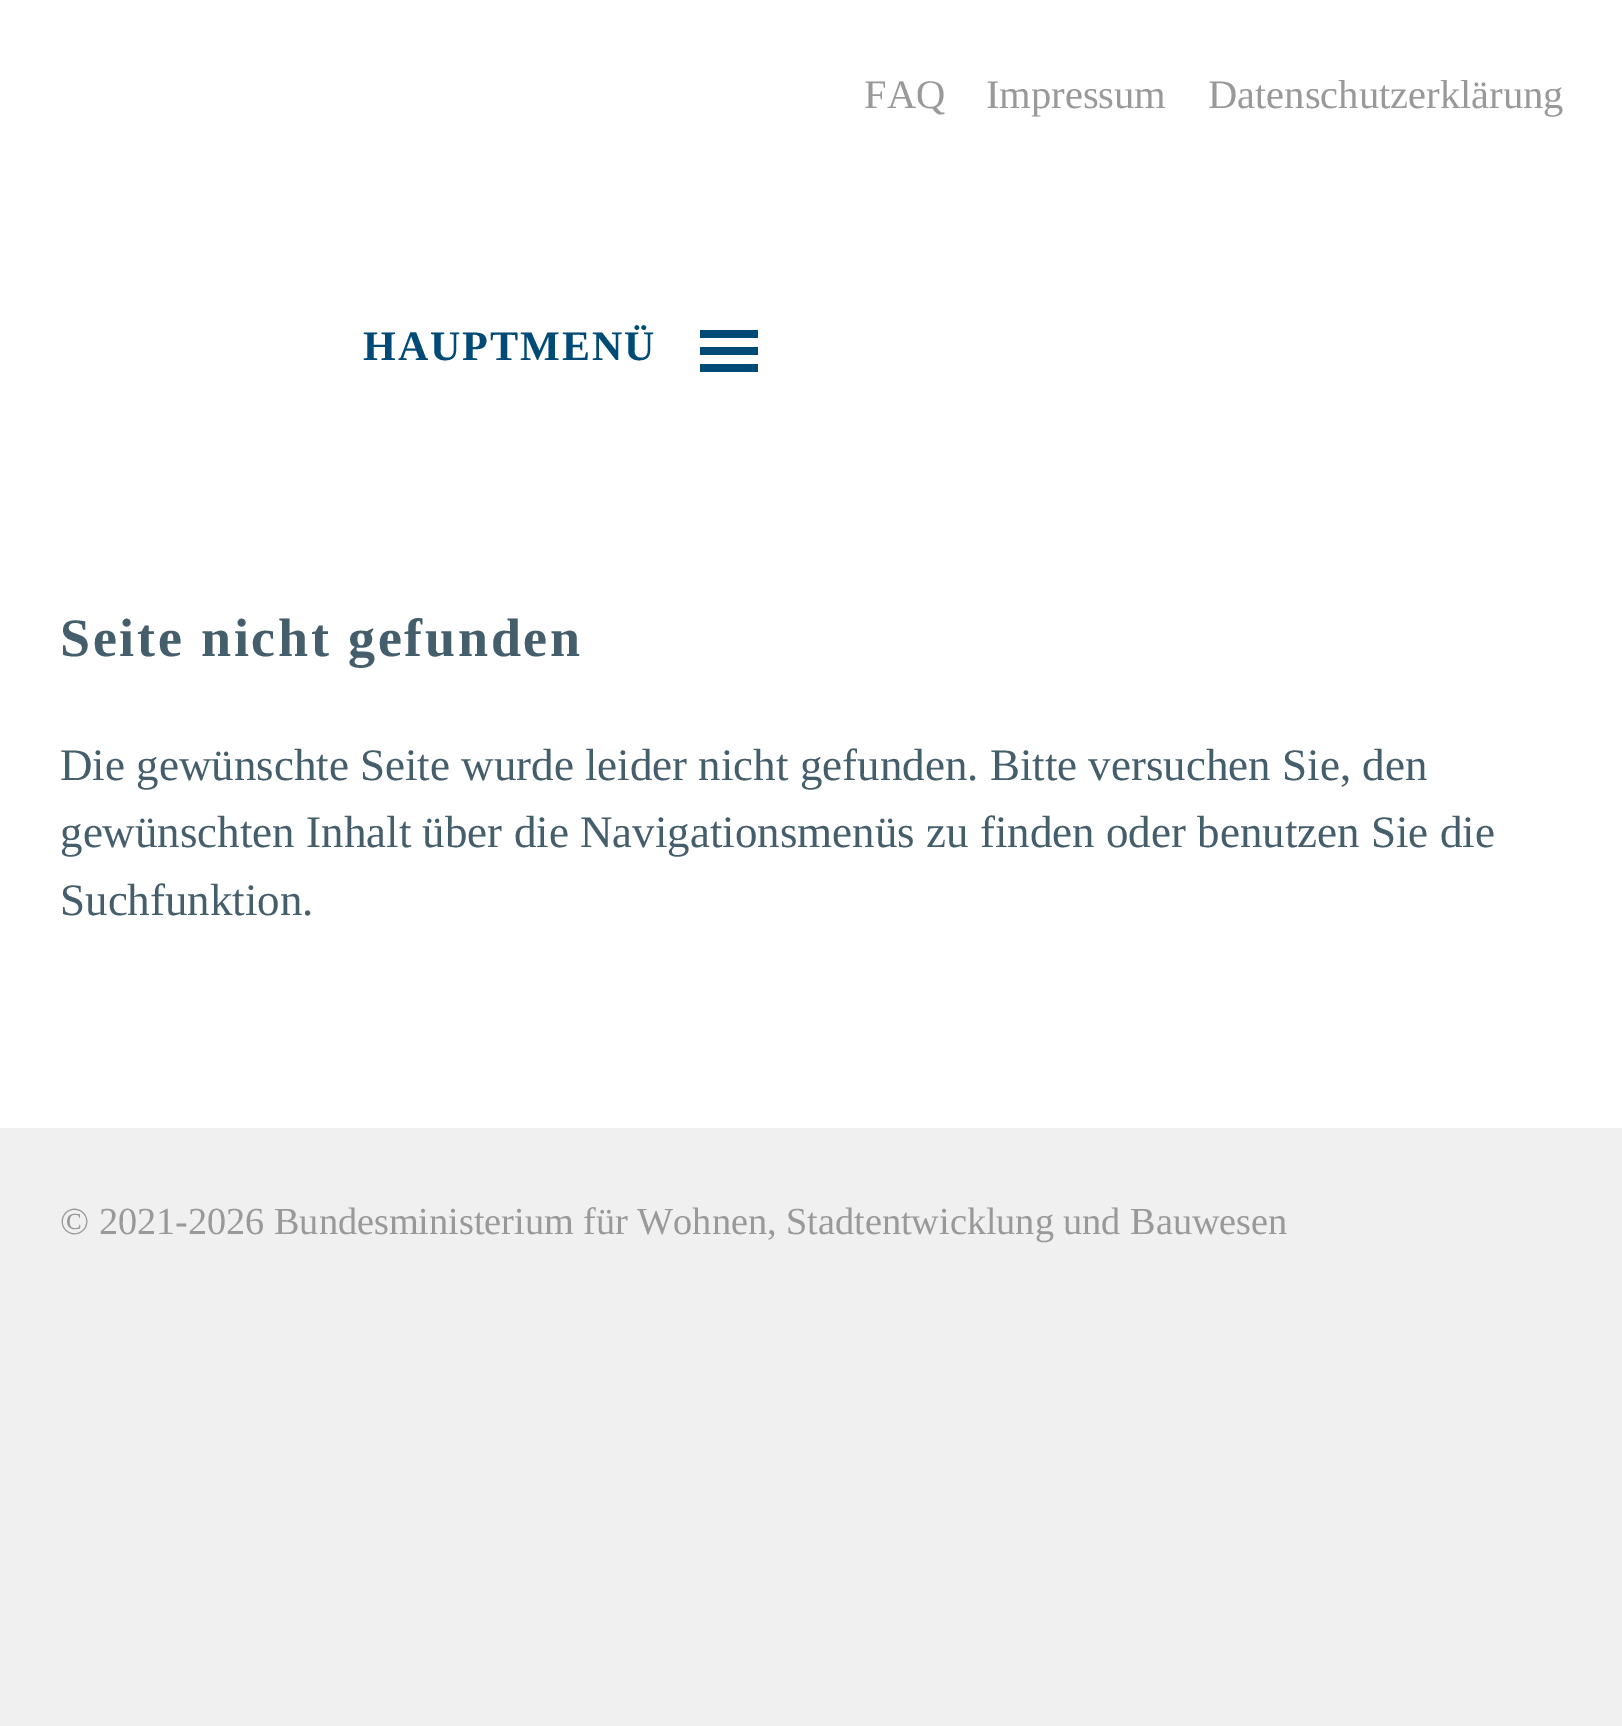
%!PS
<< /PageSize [1622 1726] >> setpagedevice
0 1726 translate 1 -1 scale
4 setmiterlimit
0.941 setgray
0 0 1622 1726 rectfill
1 setgray
0 0 1622 1128 rectfill
/LiberationSerif-Regular [40.5 0 0 -40.5 0 0] selectfont
0.6 setgray
864 108 moveto (FAQ) show
986 108 moveto (Impressum) show
1208 108 moveto (Datenschutzerklärung) show
/LiberationSerif-Bold [42 0 0 -42 0 0] selectfont
0 0.294 0.463 setrgbcolor
363 360 moveto 2 0 (HAUPTMENÜ) ashow
newpath 700 372 moveto 758 372 lineto 758 364 lineto 700 364 lineto closepath 700 330 moveto 700 338 lineto 758 338 lineto 758 330 lineto closepath 700 355 moveto 758 355 lineto 758 347 lineto 700 347 lineto closepath fill
/LiberationSerif-Bold [54 0 0 -54 0 0] selectfont
0.267 0.369 0.424 setrgbcolor
60 656 moveto 2.75 0 (Seite nicht gefunden) ashow
/LiberationSerif-Regular [45 0 0 -45 0 0] selectfont
60 780 moveto (Die gewünschte Seite wurde leider nicht gefunden. Bitte versuchen Sie, den) show
60 847 moveto (gewünschten Inhalt über die Navigationsmenüs zu finden oder benutzen Sie die) show
60 915 moveto (Suchfunktion.) show
/LiberationSerif-Regular [38.25 0 0 -38.25 0 0] selectfont
0.6 setgray
60 1234 moveto (© 2021-2026 Bundesministerium für Wohnen, Stadtentwicklung und Bauwesen) show
showpage
